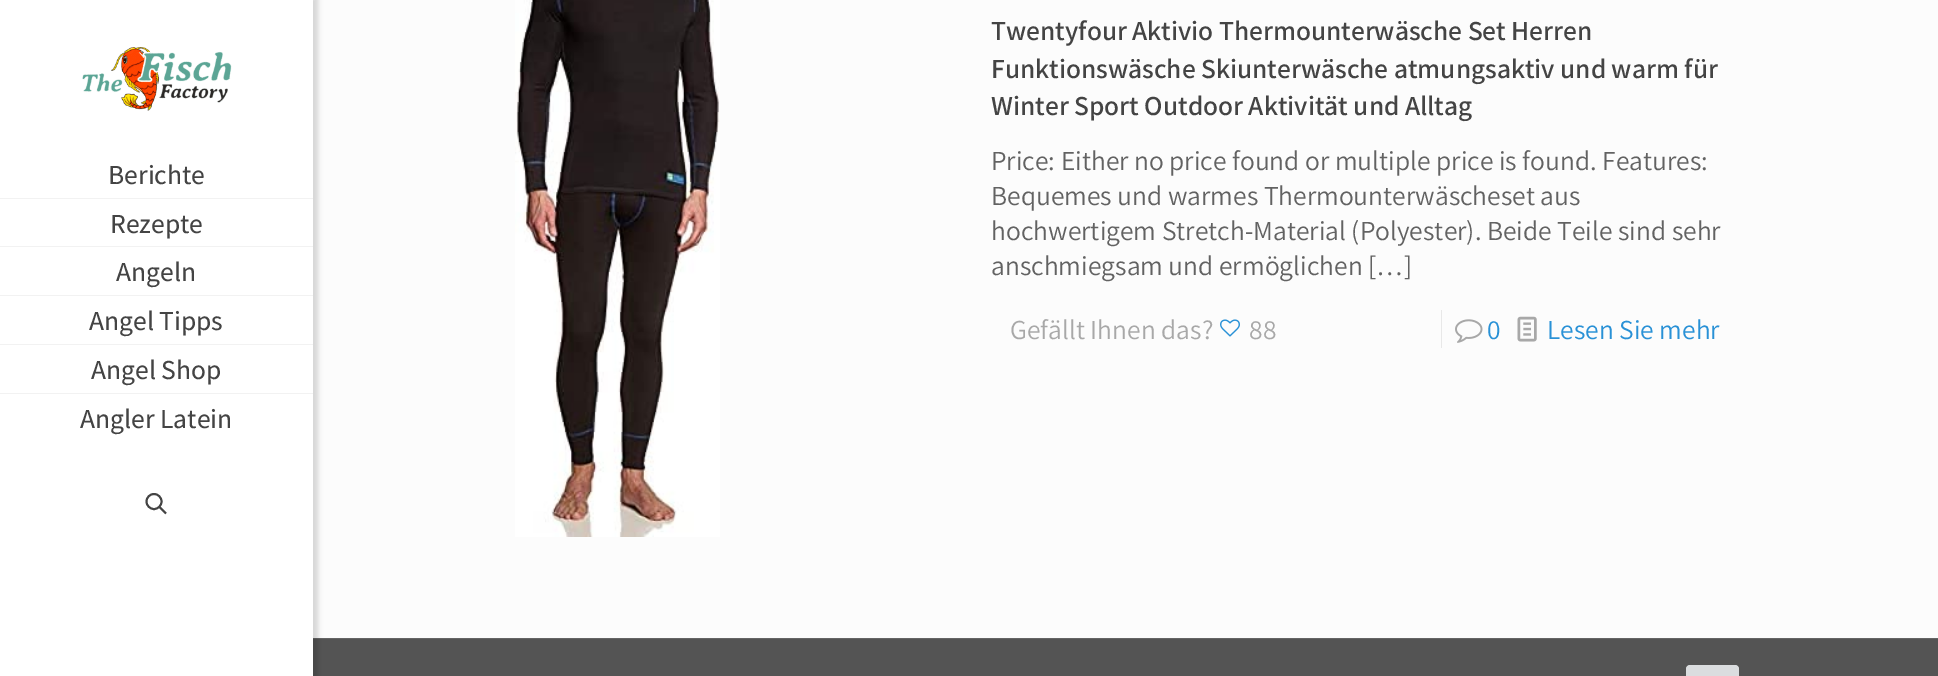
%!PS
<< /PageSize [1938 676] /PageUsesTransparency true >> setpagedevice
/alpha { dup .setfillconstantalpha .setstrokeconstantalpha } def
/roundrect { 5 dict begin { /r /h /w /y /x } { exch def } forall
  x r add y moveto x w add y 2 copy h add r arct x w add y h add x 1 index r arct
  x y h add x y r arct x y 2 copy exch w add exch r arct closepath end } def
/shadow { 12 dict begin { /a /b /q /h /w /y /x } { exch def } forall gsave /was 0 def
  9 -2 -9 { dup b mul 4 div /e exch def 1 sub .425 mul 2.718 exch exp 1 add a .99 .min exch div /now exch def
    1 1 now sub 1 was sub div sub alpha /was now def
    w h .min e 2 mul add 0 gt { x e sub y e sub w e 2 mul add h e 2 mul add
      q e add b .6 mul add w h .min 2 div e add .min 0 .max roundrect fill } if } for grestore end } def
/picture { 5 dict begin { /h /w /y /x /name } { exch def } forall
  gsave x y translate w h scale
  w h 8 [w 0 0 h 0 0] name (r) file false 3 colorimage grestore end } def
0 .pushpdf14devicefilter
0 676 translate 1 -1 scale
4 setmiterlimit
0.988 setgray
0 0 1938 676 rectfill
0.329 setgray
313 639 1625 37 rectfill
0.396 setgray
313 638 1625 1 rectfill
0 setgray
0 -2 318 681 0 2.5 0.15 shadow
1 setgray
0 0 313 676 rectfill
(img1.rgb) 82 47 150 64 picture
0.949 setgray
0 198 313 1 rectfill
/Assistant-Medium [27.5 0 0 -27.5 0 0] selectfont
0.267 setgray
108 184 moveto (Berichte) show
0.949 setgray
0 246 313 1 rectfill
0.267 setgray
110 233 moveto (Rezepte) show
0.949 setgray
0 295 313 1 rectfill
0.267 setgray
116 281 moveto (Angeln) show
0.949 setgray
0 344 313 1 rectfill
0.267 setgray
89 330 moveto (Angel Tipps) show
0.949 setgray
0 393 313 1 rectfill
0.267 setgray
91 379 moveto (Angel Shop) show
80 428 moveto (Angler Latein) show
1.9 setlinewidth
newpath 154 501.5 7.5 0 360 arc closepath stroke
newpath 159.5 507 moveto 166 513.5 lineto stroke
(img2.rgb) 515 0 205 537 picture
/Assistant-SemiBold [27.5 0 0 -27.5 0 0] selectfont
991 40 moveto (Twentyfour Aktivio Thermounterwäsche Set Herren) show
991 78 moveto (Funktionswäsche Skiunterwäsche atmungsaktiv und warm für) show
991 115 moveto (Winter Sport Outdoor Aktivität und Alltag) show
/Assistant-Regular [27.5 0 0 -27.5 0 0] selectfont
0.384 setgray
991 170 moveto (Price: Either no price found or multiple price is found. Features:) show
991 205 moveto (Bequemes und warmes Thermounterwäscheset aus) show
991 240 moveto (hochwertigem Stretch-Material \(Polyester\). Beide Teile sind sehr) show
991 275 moveto (anschmiegsam und ermöglichen […]) show
0.659 setgray
1010 339 moveto (Gefällt Ihnen das?) show
(img3.rgb) 1220 319 20 18 picture
1249 339 moveto (88) show
0.91 setgray
1441 310 1 38 rectfill
(img4.rgb) 1455 319 28 24 picture
0.161 0.569 0.839 setrgbcolor
1487 339 moveto (0) show
(img5.rgb) 1517 316 20 26 picture
1547 339 moveto (Lesen Sie mehr) show
0.859 0.867 0.875 setrgbcolor
1686 665 53 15 4 roundrect fill
.poppdf14devicefilter showpage
